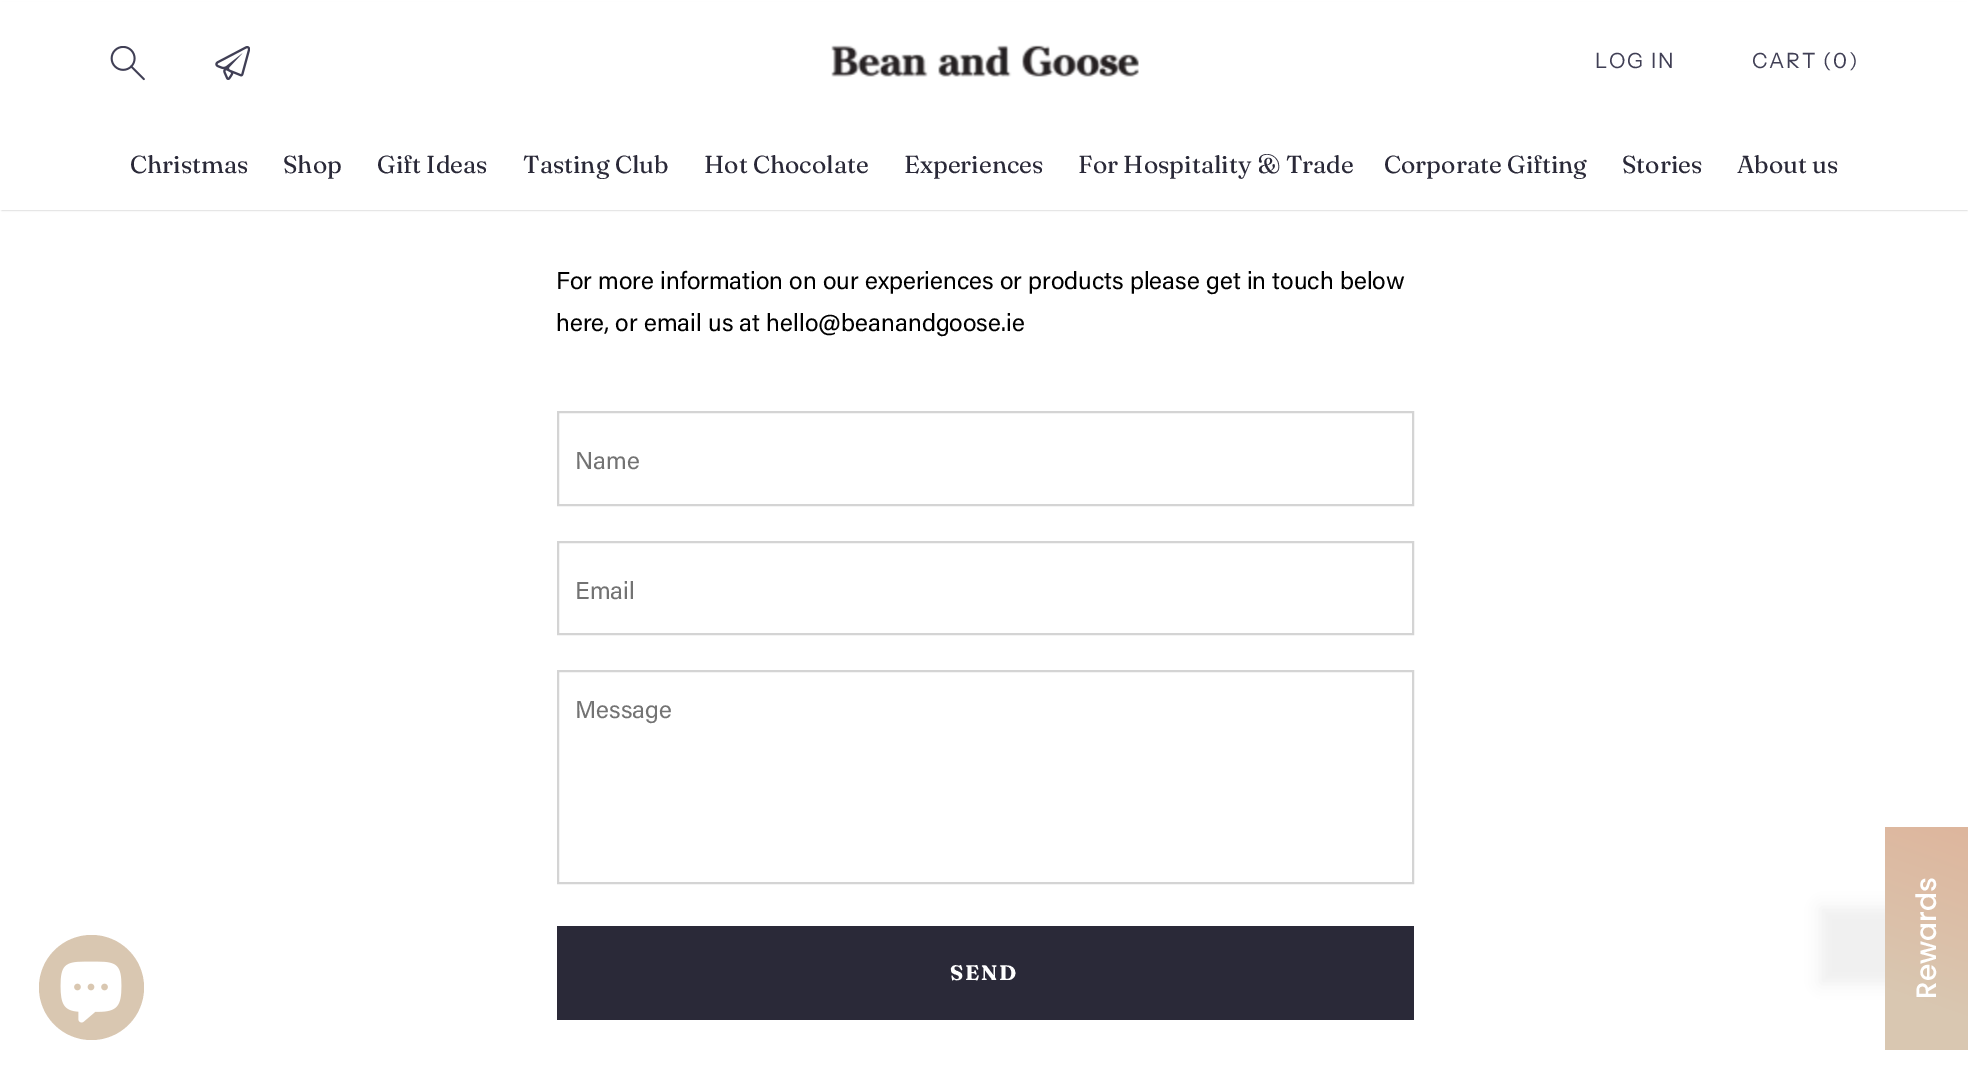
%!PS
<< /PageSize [1968 1076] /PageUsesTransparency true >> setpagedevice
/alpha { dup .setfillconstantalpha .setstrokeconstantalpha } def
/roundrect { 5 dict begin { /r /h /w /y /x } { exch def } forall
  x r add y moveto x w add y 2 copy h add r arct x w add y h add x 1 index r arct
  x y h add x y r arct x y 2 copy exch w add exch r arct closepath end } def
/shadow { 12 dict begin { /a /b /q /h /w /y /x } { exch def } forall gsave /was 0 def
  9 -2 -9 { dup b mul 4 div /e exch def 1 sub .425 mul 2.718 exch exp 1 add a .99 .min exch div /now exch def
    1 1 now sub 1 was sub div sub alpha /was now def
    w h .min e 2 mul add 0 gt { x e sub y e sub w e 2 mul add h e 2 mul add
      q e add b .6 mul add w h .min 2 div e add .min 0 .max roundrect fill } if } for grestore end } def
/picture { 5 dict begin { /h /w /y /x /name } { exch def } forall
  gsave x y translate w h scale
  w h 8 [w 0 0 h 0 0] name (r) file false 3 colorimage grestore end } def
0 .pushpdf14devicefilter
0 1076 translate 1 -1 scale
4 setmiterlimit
1 setgray
0 0 1968 1076 rectfill
0 setgray
2 4 1965 206 0 1 0.3 shadow
1 setgray
0 2 1968 208 rectfill
(img1.rgb) 110 46 35 35 picture
(img2.rgb) 215 46 35 34 picture
(img3.rgb) 831 45 308 32 picture
/InstrumentSans-Regular [21 0 0 -21 0 0] selectfont
0.251 0.247 0.333 setrgbcolor
1595 68 moveto 1.75 0 (LOG IN) ashow
1752 68 moveto 1.75 0 (CART \(0\)) ashow
/Fraunces-Regular [24.5 0 0 -24.5 0 0] selectfont
0.165 0.161 0.22 setrgbcolor
130 173 moveto (Christmas) show
283 173 moveto (Shop) show
377 173 moveto (Gift Ideas) show
523 173 moveto (Tasting Club) show
704 173 moveto (Hot Chocolate) show
904 173 moveto (Experiences) show
1078 173 moveto (For Hospitality & Trade) show
1384 173 moveto (Corporate Gifting) show
1622 173 moveto (Stories) show
1737 173 moveto (About us) show
0.851 0.78 0.694 setrgbcolor
newpath 91.5 987.5 52.5 0 360 arc closepath fill
(img4.rgb) 60 961 62 62 picture
/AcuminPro-Regular [24.5 0 0 -24.5 0 0] selectfont
0 setgray
556 289 moveto (For more information on our experiences or products please get in touch below) show
556 331 moveto (here, or email us at hello@beanandgoose.ie) show
0.831 setgray
2 setlinewidth
558 412 855 93 rectstroke
0.451 setgray
575 469 moveto (Name) show
0.831 setgray
558 542 855 92 rectstroke
0.451 setgray
575 599 moveto (Email) show
0.831 setgray
558 671 855 212 rectstroke
0.451 setgray
575 718 moveto (Message) show
0.165 0.161 0.22 setrgbcolor
557 926 857 94 rectfill
/Fraunces-Bold [21 0 0 -21 0 0] selectfont
1 setgray
950 980 moveto 1.75 0 (SEND) ashow
0.267 setgray
1820 907 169 77 0 7 0.08 shadow
gsave newpath 1885 827 moveto 1968 827 lineto 1968 1050 lineto 1885 1050 lineto closepath clip newpath
<< /ShadingType 2 /ColorSpace /DeviceRGB /Coords [1888 1051 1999 736] /Extend [true true] /Function << /FunctionType 3 /Domain [0 1] /Functions [<< /FunctionType 2 /Domain [0 1] /C0 [0.851 0.78 0.694] /C1 [0.851 0.78 0.694] /N 1 >> << /FunctionType 2 /Domain [0 1] /C0 [0.851 0.78 0.694] /C1 [0.878 0.678 0.573] /N 1 >>] /Bounds [0.17] /Encode [0 1 0 1] >> >> shfill grestore
/Poppins-Medium [28 0 0 -28 0 0] selectfont
1 setgray
gsave 1936 999 translate -90 rotate 0 0 moveto (Rewards) show grestore
.poppdf14devicefilter showpage
